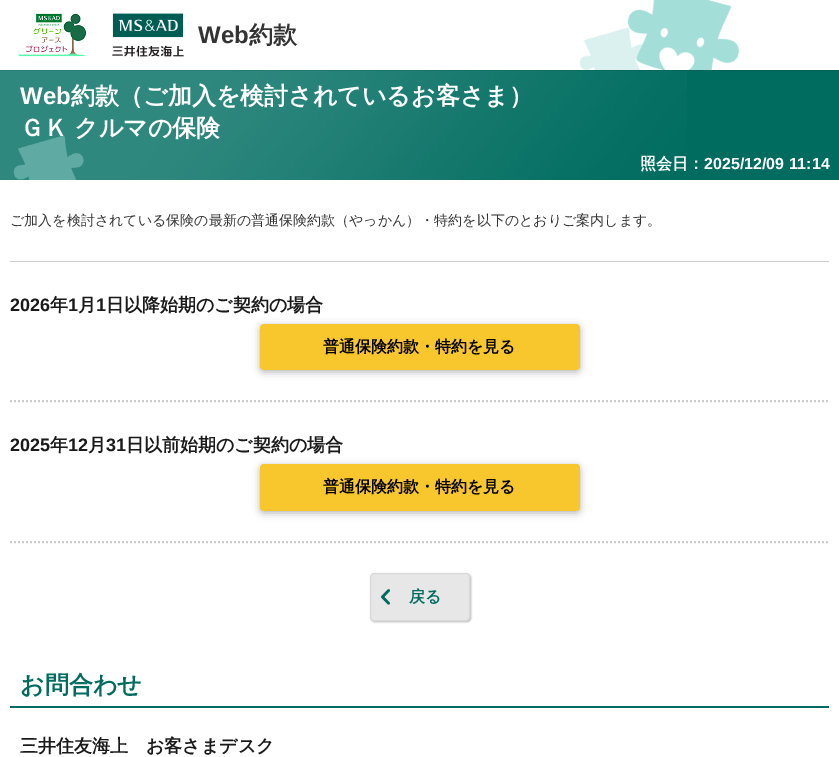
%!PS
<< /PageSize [839 757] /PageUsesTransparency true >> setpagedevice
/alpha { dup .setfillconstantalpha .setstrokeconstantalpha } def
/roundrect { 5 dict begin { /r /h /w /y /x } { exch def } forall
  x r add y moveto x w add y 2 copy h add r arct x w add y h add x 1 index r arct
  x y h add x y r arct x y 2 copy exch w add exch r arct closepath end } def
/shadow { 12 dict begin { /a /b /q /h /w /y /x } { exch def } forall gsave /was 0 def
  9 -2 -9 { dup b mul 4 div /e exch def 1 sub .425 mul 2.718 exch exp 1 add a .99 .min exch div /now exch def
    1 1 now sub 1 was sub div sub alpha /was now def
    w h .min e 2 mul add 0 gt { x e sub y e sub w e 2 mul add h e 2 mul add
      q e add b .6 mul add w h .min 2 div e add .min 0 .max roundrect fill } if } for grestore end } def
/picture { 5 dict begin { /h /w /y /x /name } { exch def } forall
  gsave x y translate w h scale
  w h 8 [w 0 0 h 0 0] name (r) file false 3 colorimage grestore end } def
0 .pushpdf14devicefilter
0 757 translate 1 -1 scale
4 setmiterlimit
1 setgray
0 0 839 757 rectfill
0 0.424 0.376 setrgbcolor
0 70 839 110 rectfill
(img4.rgb) 0 70 687 110 picture
gsave
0 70 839 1 rectclip
0 setgray
0 0 839 70 0 1 0.3 shadow
grestore
(img1.rgb) 579 0 160 70 picture
(img2.rgb) 18 13 68 44 picture
(img3.rgb) 112 13 72 44 picture
/LiberationSans-Bold [24 0 0 -24 0 0] selectfont
0.2 setgray
198 43 moveto (Web) show
/WenQuanYiZenHei-Bold [24 0 0 -24 0 0] selectfont
249 43 moveto (約款) show
(img5.rgb) 13 135 71 45 picture
/LiberationSans-Bold [24 0 0 -24 0 0] selectfont
1 setgray
20 104 moveto (Web) show
/WenQuanYiZenHei-Bold [24 0 0 -24 0 0] selectfont
71 104 moveto (約款（ご加入を検討されているお客さま）) show
20 136 moveto -1 0 32 (ＧＫ クルマの保険) widthshow
/WenQuanYiZenHei-Bold [16 0 0 -16 0 0] selectfont
640 169 moveto (照会日：) show
/LiberationSans-Bold [16 0 0 -16 0 0] selectfont
704 169 moveto (2025/12/09 11:14) show
0.8 setgray
10 261 819 1 rectfill
/WenQuanYiZenHei-Medium [14 0 0 -14 0 0] selectfont
0.2 setgray
10 225 moveto (ご加入を検討されている保険の最新の普通保険約款（やっかん）・特約を以下のとおりご案内します。) show
0.8 setgray
2 setlinewidth
[2 2] 0 setdash
newpath 10 401 moveto 829 401 lineto stroke
/LiberationSans-Bold [18 0 0 -18 0 0] selectfont
0.102 setgray
10 311 moveto (2026) show
/WenQuanYiZenHei-Bold [18 0 0 -18 0 0] selectfont
50 311 moveto (年) show
/LiberationSans-Bold [18 0 0 -18 0 0] selectfont
68 311 moveto (1) show
/WenQuanYiZenHei-Bold [18 0 0 -18 0 0] selectfont
78 311 moveto (月) show
/LiberationSans-Bold [18 0 0 -18 0 0] selectfont
96 311 moveto (1) show
/WenQuanYiZenHei-Bold [18 0 0 -18 0 0] selectfont
106 311 moveto (日以降始期のご契約の場合) show
0 setgray
260 326 320 46 4 4 0.3 shadow
0.973 0.776 0.176 setrgbcolor
260 324 320 46 4 roundrect fill
/WenQuanYiZenHei-Bold [16 0 0 -16 0 0] selectfont
0 setgray
323 352 moveto (普通保険約款・特約を見る) show
0.8 setgray
newpath 10 542 moveto 829 542 lineto stroke
/LiberationSans-Bold [18 0 0 -18 0 0] selectfont
0.102 setgray
10 451 moveto (2025) show
/WenQuanYiZenHei-Bold [18 0 0 -18 0 0] selectfont
50 451 moveto (年) show
/LiberationSans-Bold [18 0 0 -18 0 0] selectfont
68 451 moveto (12) show
/WenQuanYiZenHei-Bold [18 0 0 -18 0 0] selectfont
88 451 moveto (月) show
/LiberationSans-Bold [18 0 0 -18 0 0] selectfont
106 451 moveto (31) show
/WenQuanYiZenHei-Bold [18 0 0 -18 0 0] selectfont
126 451 moveto (日以前始期のご契約の場合) show
0 setgray
260 466 320 47 4 4 0.3 shadow
0.973 0.776 0.176 setrgbcolor
260 464 320 47 4 roundrect fill
/WenQuanYiZenHei-Bold [16 0 0 -16 0 0] selectfont
0 setgray
323 492 moveto (普通保険約款・特約を見る) show
371 574 100 48 4 1 0.3 shadow
(img6.rgb) 371 574 98 46 picture
0.851 setgray
1 setlinewidth
[] 0 setdash
370.5 573.5 99 47 3.5 roundrect stroke
0 0.424 0.376 setrgbcolor
409 602 moveto (戻る) show
10 706 819 2 rectfill
/WenQuanYiZenHei-Bold [24 0 0 -24 0 0] selectfont
20 693 moveto (お問合わせ) show
/WenQuanYiZenHei-Bold [18 0 0 -18 0 0] selectfont
0.102 setgray
20 752 moveto (三井住友海上　お客さまデスク) show
.poppdf14devicefilter showpage
